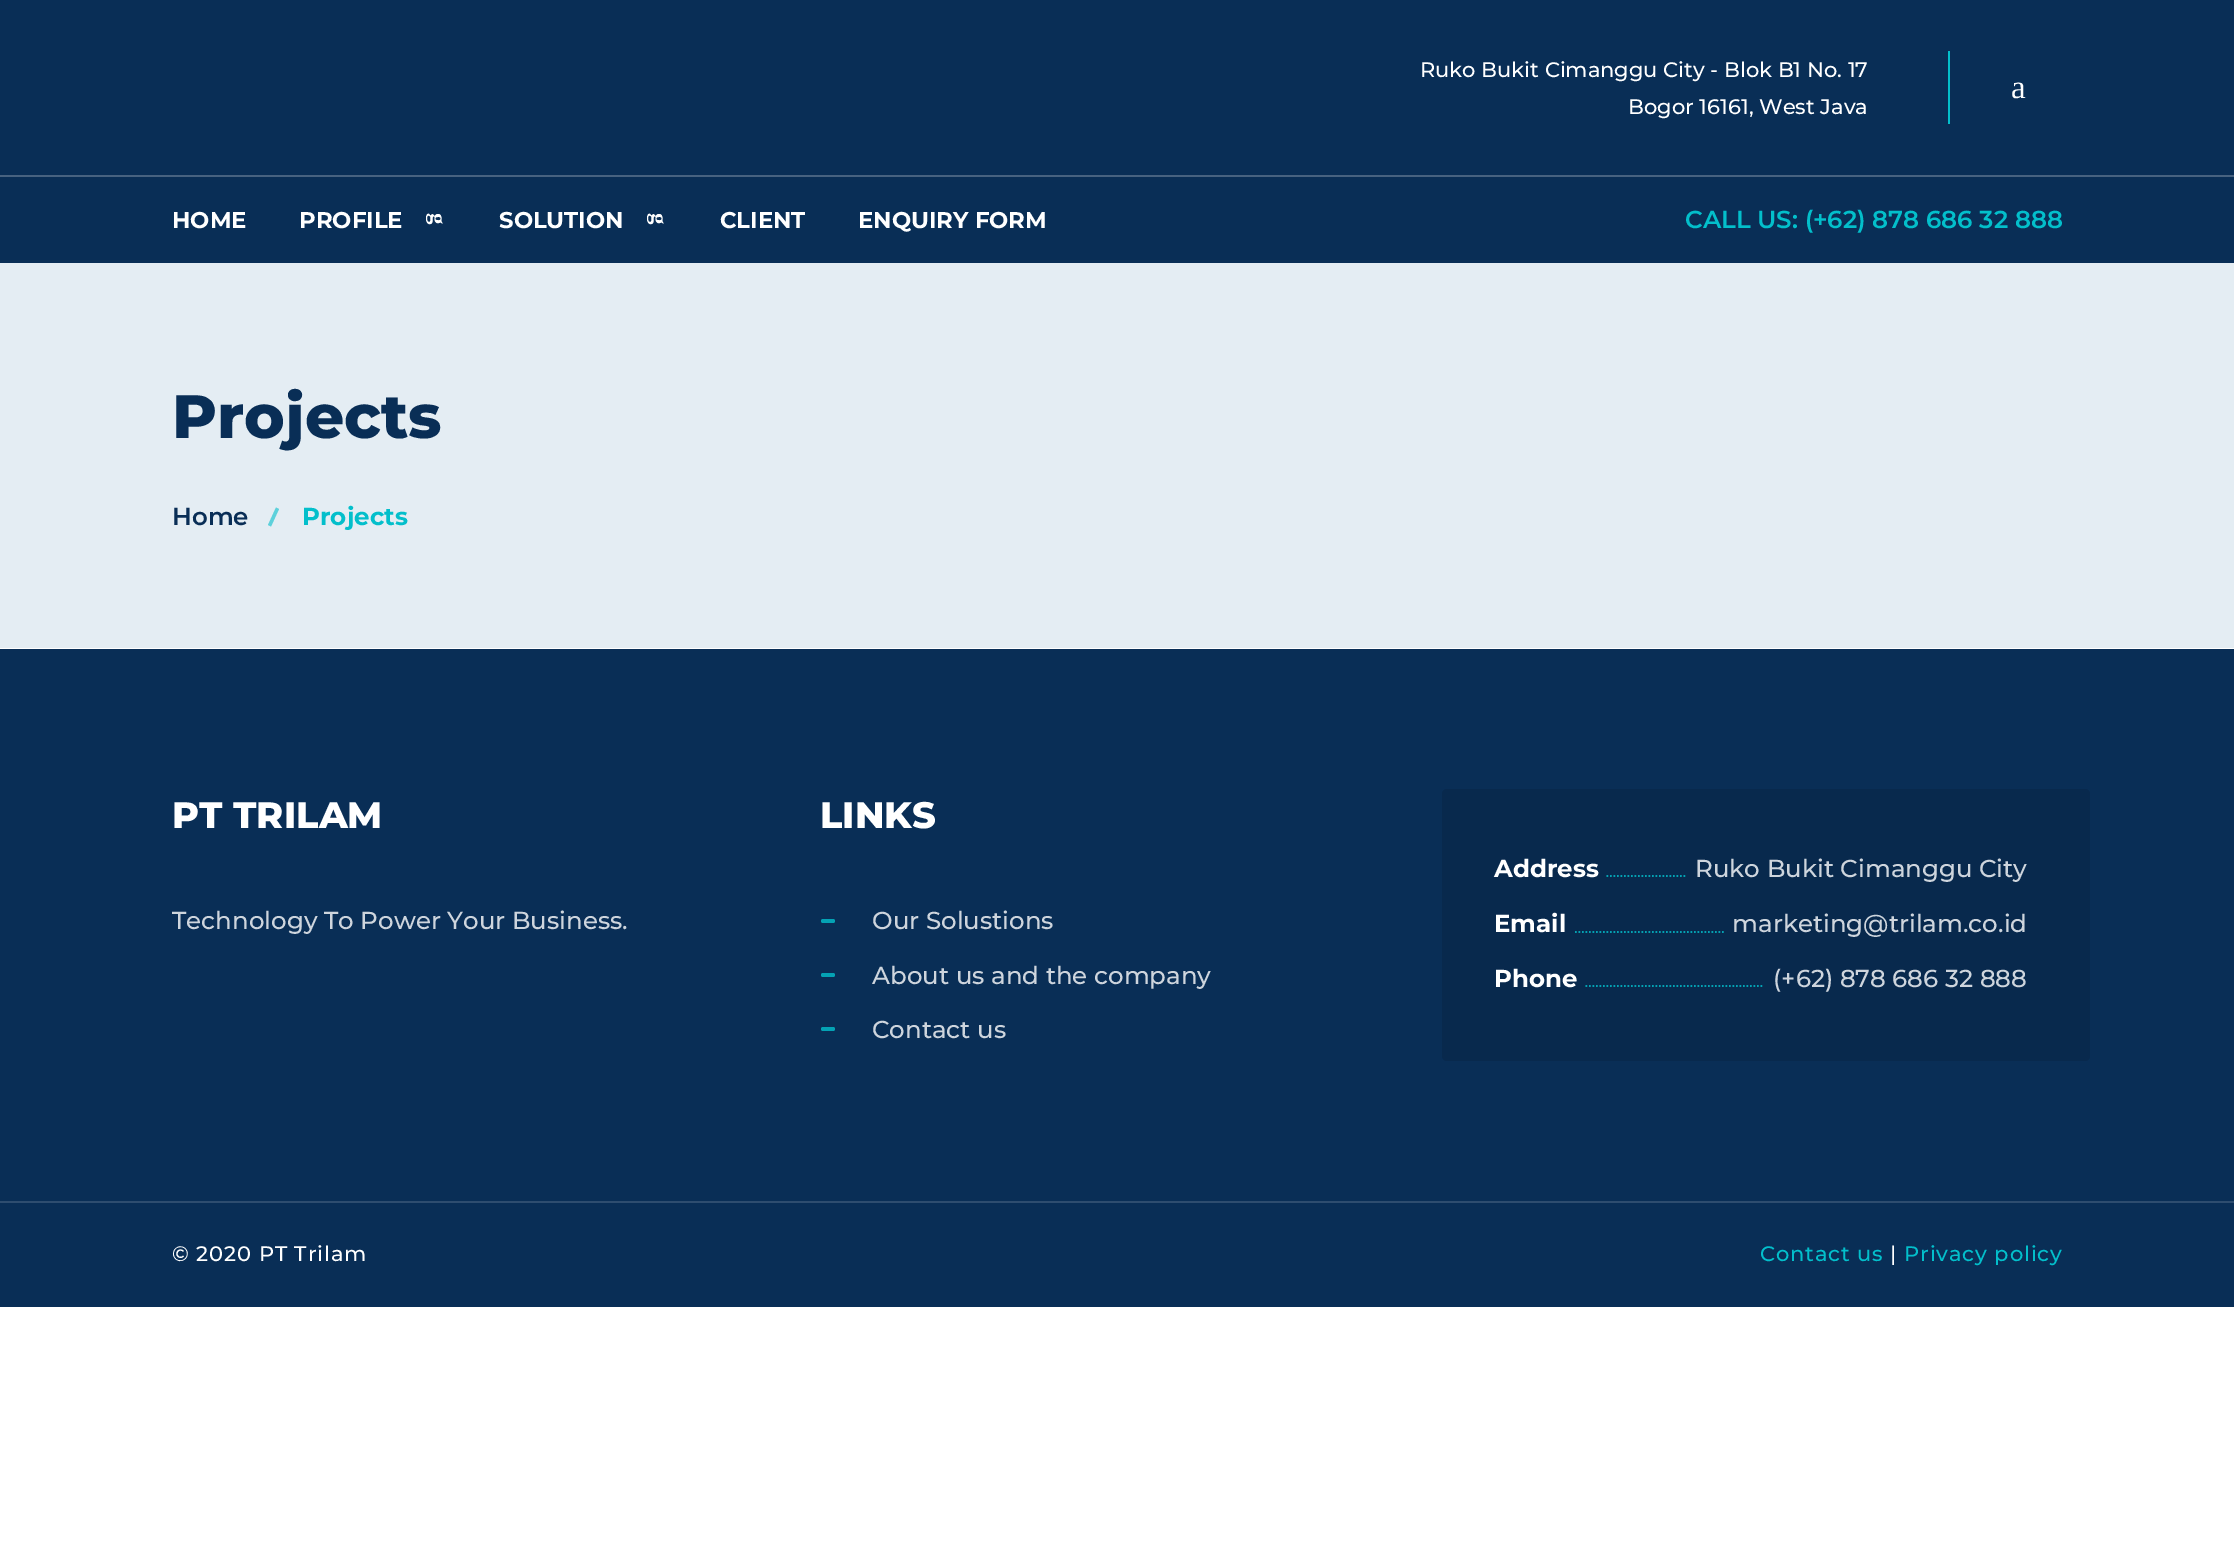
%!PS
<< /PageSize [2234 1557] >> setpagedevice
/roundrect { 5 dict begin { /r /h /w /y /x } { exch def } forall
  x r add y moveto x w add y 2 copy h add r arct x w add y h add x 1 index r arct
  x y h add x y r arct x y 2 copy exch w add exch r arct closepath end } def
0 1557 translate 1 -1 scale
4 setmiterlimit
1 setgray
0 0 2234 1557 rectfill
0.035 0.18 0.337 setrgbcolor
0 0 2234 263 rectfill
0.012 0.749 0.796 setrgbcolor
1948 51 2 73 rectfill
/Montserrat-Medium [21 0 0 -21 0 0] selectfont
1 setgray
1420 77 moveto (Ruko Bukit Cimanggu City - Blok B1 No. 17) show
1628 114 moveto (Bogor 16161, West Java) show
/LiberationSerif-Regular [33 0 0 -33 0 0] selectfont
2011 98 moveto (a) show
/Montserrat-Bold [22.75 0 0 -22.75 0 0] selectfont
172 228 moveto (HOME) show
299 228 moveto (PROFILE) show
/LiberationSerif-Bold [22.75 0 0 -22.75 0 0] selectfont
gsave 431 213 translate 90 rotate 0 0 moveto (g) show grestore
/Montserrat-Bold [22.75 0 0 -22.75 0 0] selectfont
499 228 moveto (SOLUTION) show
/LiberationSerif-Bold [22.75 0 0 -22.75 0 0] selectfont
gsave 652 213 translate 90 rotate 0 0 moveto (g) show grestore
/Montserrat-Bold [22.75 0 0 -22.75 0 0] selectfont
720 228 moveto (CLIENT) show
858 228 moveto (ENQUIRY FORM) show
/Montserrat-SemiBold [24.5 0 0 -24.5 0 0] selectfont
0.012 0.749 0.796 setrgbcolor
1685 228 moveto (CALL US: \(+62\) 878 686 32 888) show
0.278 0.384 0.502 setrgbcolor
0 175 2234 2 rectfill
0.894 0.929 0.953 setrgbcolor
0 263 2234 385 rectfill
/Montserrat-ExtraBold [61.25 0 0 -61.25 0 0] selectfont
0.035 0.18 0.337 setrgbcolor
172 438 moveto (Projects) show
/Montserrat-SemiBold [24.5 0 0 -24.5 0 0] selectfont
172 525 moveto (Home) show
0.365 0.82 0.859 setrgbcolor
newpath 276 507.5 moveto 279 509 lineto 271 526.5 lineto 268 525 lineto closepath fill
/Montserrat-Bold [24.5 0 0 -24.5 0 0] selectfont
0.012 0.749 0.796 setrgbcolor
302 525 moveto (Projects) show
0.035 0.18 0.337 setrgbcolor
0 649 2234 658 rectfill
/Montserrat-ExtraBold [36.75 0 0 -36.75 0 0] selectfont
1 setgray
172 828 moveto (PT TRILAM) show
/Montserrat-Medium [24.5 0 0 -24.5 0 0] selectfont
0.808 0.835 0.867 setrgbcolor
172 929 moveto (Technology To Power Your Business.) show
/Montserrat-ExtraBold [36.75 0 0 -36.75 0 0] selectfont
1 setgray
820 828 moveto (LINKS) show
0.016 0.635 0.706 setrgbcolor
821 919 14 4 2 roundrect fill
/Montserrat-Medium [24.5 0 0 -24.5 0 0] selectfont
0.808 0.835 0.867 setrgbcolor
872 929 moveto (Our Solustions) show
0.016 0.635 0.706 setrgbcolor
821 973 14 4 2 roundrect fill
0.808 0.835 0.867 setrgbcolor
872 984 moveto (About us and the company) show
0.016 0.635 0.706 setrgbcolor
821 1027 14 4 2 roundrect fill
0.808 0.835 0.867 setrgbcolor
872 1038 moveto (Contact us) show
0.031 0.161 0.302 setrgbcolor
1442 789 648 272 5 roundrect fill
/Montserrat-Bold [24.5 0 0 -24.5 0 0] selectfont
1 setgray
1494 877 moveto (Address) show
0.016 0.631 0.698 setrgbcolor
1.8 setlinewidth
[1.75 1.75] 0 setdash
newpath 1606.5 876 moveto 1687 876 lineto stroke
/Montserrat-Medium [24.5 0 0 -24.5 0 0] selectfont
0.808 0.835 0.867 setrgbcolor
1695 877 moveto (Ruko Bukit Cimanggu City) show
/Montserrat-Bold [24.5 0 0 -24.5 0 0] selectfont
1 setgray
1494 932 moveto (Email) show
0.016 0.631 0.698 setrgbcolor
newpath 1575 932 moveto 1724 932 lineto stroke
/Montserrat-Medium [24.5 0 0 -24.5 0 0] selectfont
0.808 0.835 0.867 setrgbcolor
1732 932 moveto (marketing@trilam.co.id) show
/Montserrat-Bold [24.5 0 0 -24.5 0 0] selectfont
1 setgray
1494 987 moveto (Phone) show
0.016 0.631 0.698 setrgbcolor
newpath 1585.5 986 moveto 1764 986 lineto stroke
/Montserrat-Medium [24.5 0 0 -24.5 0 0] selectfont
0.808 0.835 0.867 setrgbcolor
1773 987 moveto (\(+62\) 878 686 32 888) show
0.18 0.302 0.435 setrgbcolor
0 1201 2234 2 rectfill
/Montserrat-Medium [21 0 0 -21 0 0] selectfont
1 setgray
172 1261 moveto 0.9 0 (© 2020 PT Trilam) ashow
0.012 0.749 0.796 setrgbcolor
1760 1261 moveto 0.9 0 (Contact us) ashow
1 setgray
1890 1261 moveto 0.9 0 (|) ashow
0.012 0.749 0.796 setrgbcolor
1904 1261 moveto 0.9 0 (Privacy policy) ashow
showpage
